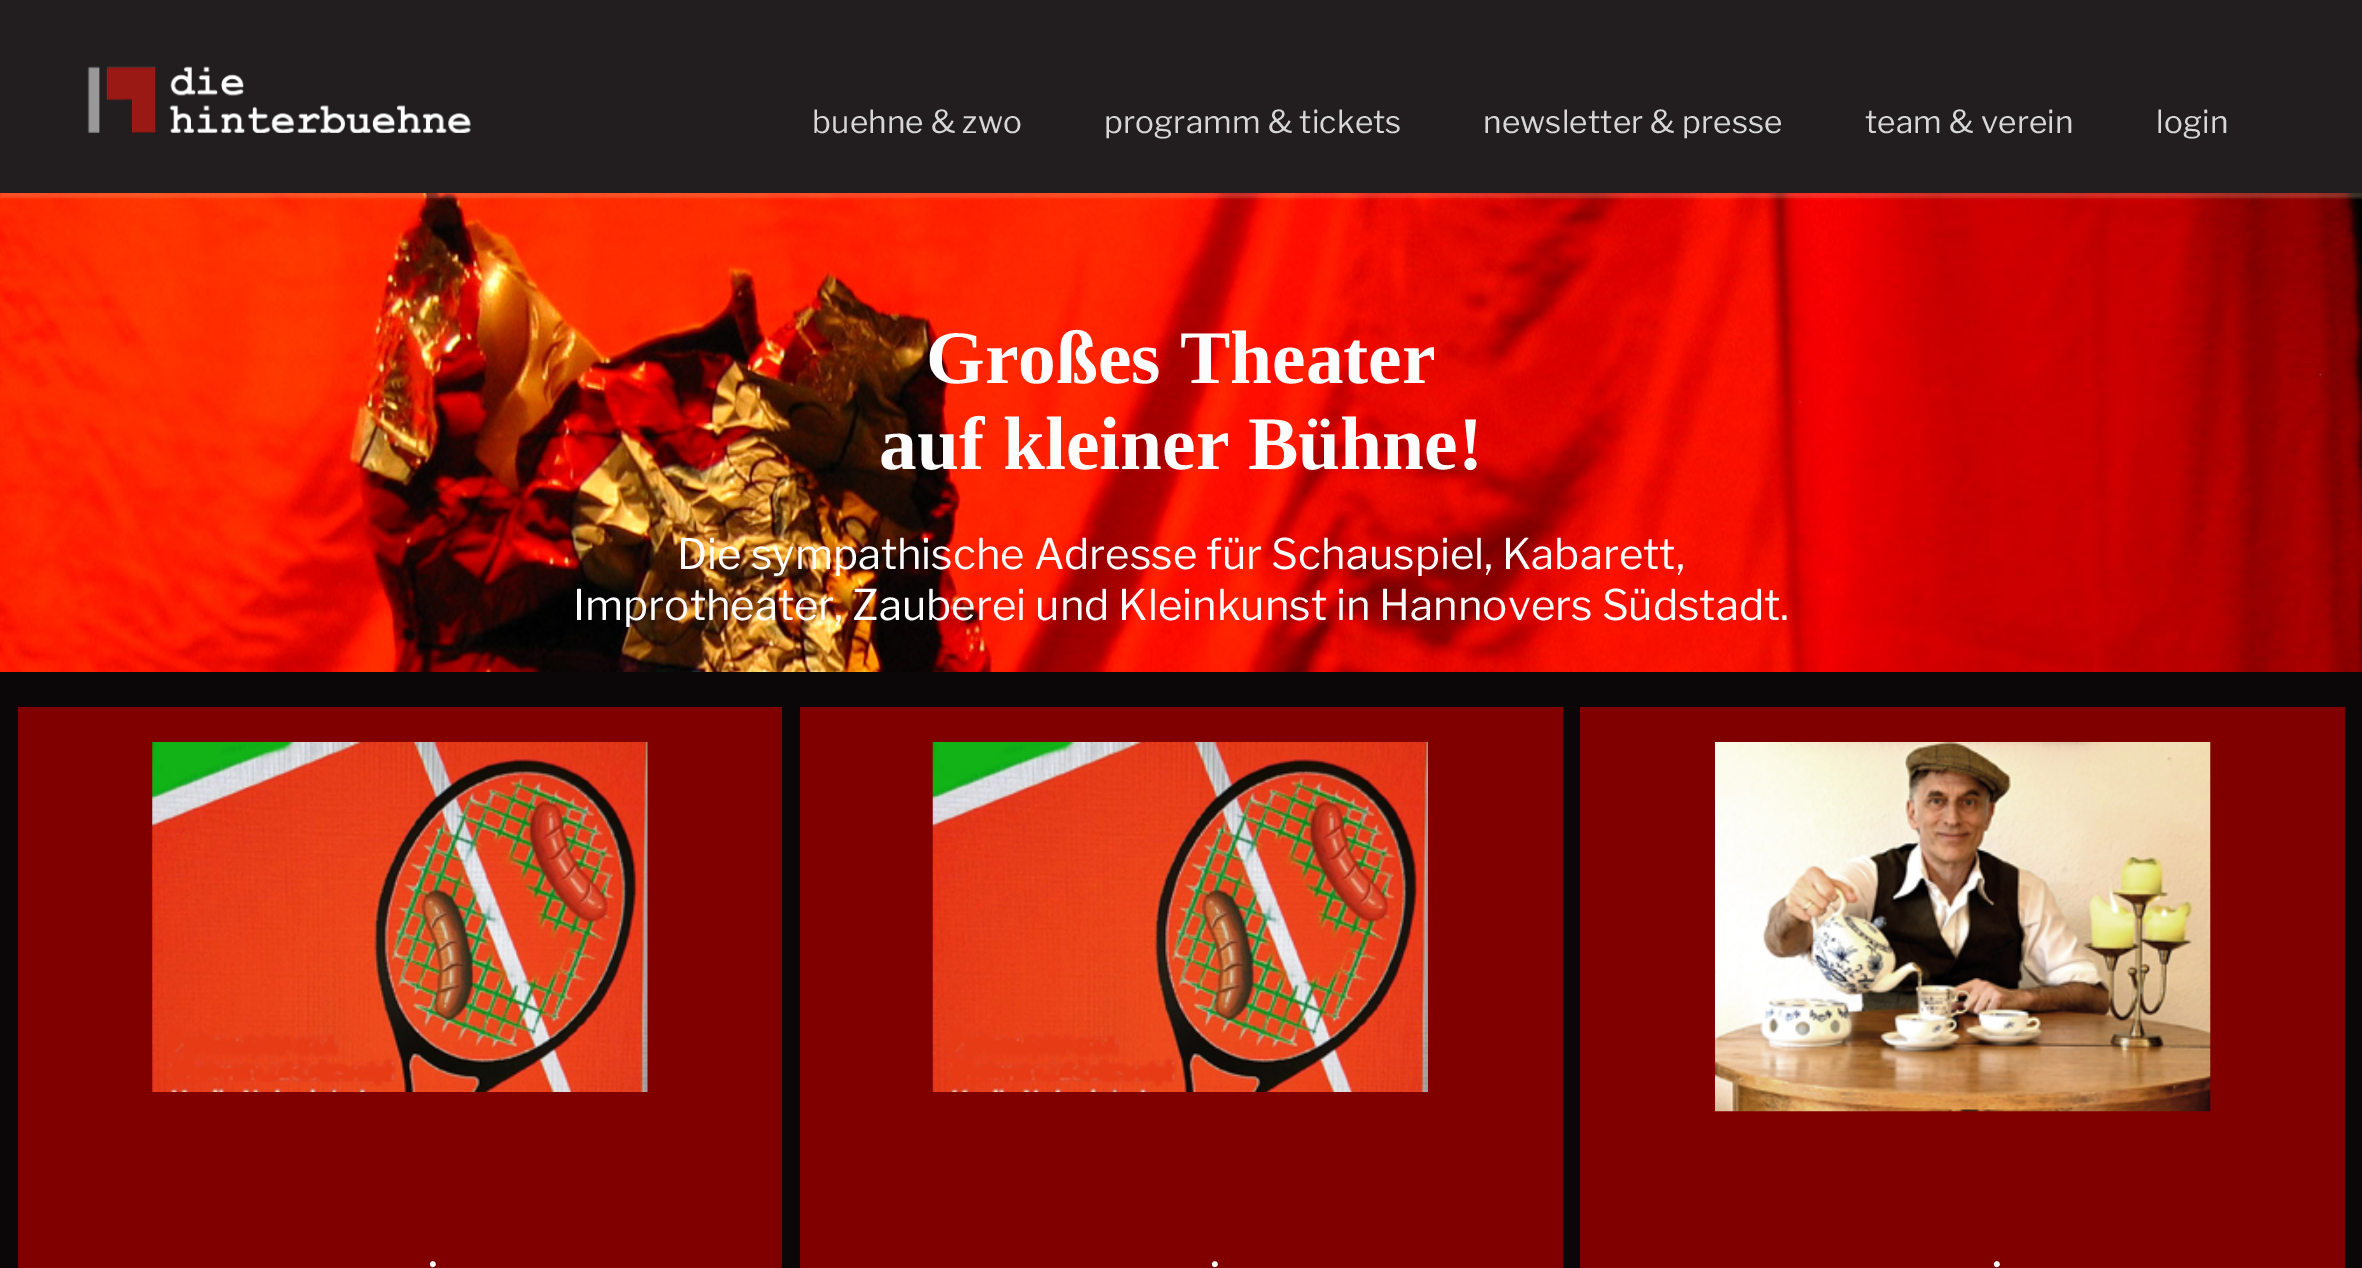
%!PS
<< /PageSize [2362 1268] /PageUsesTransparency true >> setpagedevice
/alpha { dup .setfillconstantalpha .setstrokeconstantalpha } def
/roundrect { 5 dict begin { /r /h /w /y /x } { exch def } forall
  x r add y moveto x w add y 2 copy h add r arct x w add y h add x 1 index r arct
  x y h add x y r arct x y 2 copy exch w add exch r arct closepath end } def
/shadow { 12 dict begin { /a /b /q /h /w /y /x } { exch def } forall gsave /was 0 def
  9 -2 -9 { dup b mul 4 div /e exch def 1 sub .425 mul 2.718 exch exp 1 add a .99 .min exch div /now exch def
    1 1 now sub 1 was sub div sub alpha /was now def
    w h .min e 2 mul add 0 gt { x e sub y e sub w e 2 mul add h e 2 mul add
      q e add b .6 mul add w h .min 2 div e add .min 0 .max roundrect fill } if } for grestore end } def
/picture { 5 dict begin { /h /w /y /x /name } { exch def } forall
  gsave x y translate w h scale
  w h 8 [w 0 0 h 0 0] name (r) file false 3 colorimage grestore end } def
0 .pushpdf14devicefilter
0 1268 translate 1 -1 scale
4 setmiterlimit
0.043 0.027 0.031 setrgbcolor
0 0 2362 1268 rectfill
(img2.rgb) 0 193 2362 479 picture
1 0.886 0.718 setrgbcolor
0 5 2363 193 0 1 0.2 shadow
0.133 0.118 0.122 setrgbcolor
0 0 2362 193 rectfill
(img1.rgb) 87 66 384 67 picture
/LibreFranklin-Regular [31.5 0 0 -31.5 0 0] selectfont
0.843 setgray
812 133 moveto 0.2 0 (buehne & zwo) ashow
1104 133 moveto 0.2 0 (programm & tickets) ashow
1483 133 moveto 0.2 0 (newsletter & presse) ashow
1865 133 moveto 0.2 0 (team & verein) ashow
2156 133 moveto 0.2 0 (login) ashow
/LiberationSerif-Bold [75.5 0 0 -75.5 0 0] selectfont
0.992 0.988 0.988 setrgbcolor
926 383 moveto (Großes Theater) show
879 469 moveto (auf kleiner Bühne!) show
/LibreFranklin-Regular [42 0 0 -42 0 0] selectfont
677 569 moveto (Die sympathische Adresse für Schauspiel, Kabarett,) show
573 620 moveto (Improtheater, Zauberei und Kleinkunst in Hannovers Südstadt.) show
0.502 0 0 setrgbcolor
18 707 764 561 rectfill
(img3.rgb) 152 742 496 350 picture
/LibreFranklin-Regular [31.5 0 0 -31.5 0 0] selectfont
0.992 0.988 0.988 setrgbcolor
428 1276 moveto (•) show
0.502 0 0 setrgbcolor
800 707 763 561 rectfill
(img4.rgb) 932 742 496 350 picture
0.992 0.988 0.988 setrgbcolor
1210 1276 moveto (•) show
0.502 0 0 setrgbcolor
1580 707 765 561 rectfill
(img5.rgb) 1715 742 496 370 picture
0.992 0.988 0.988 setrgbcolor
1992 1276 moveto (•) show
.poppdf14devicefilter showpage
